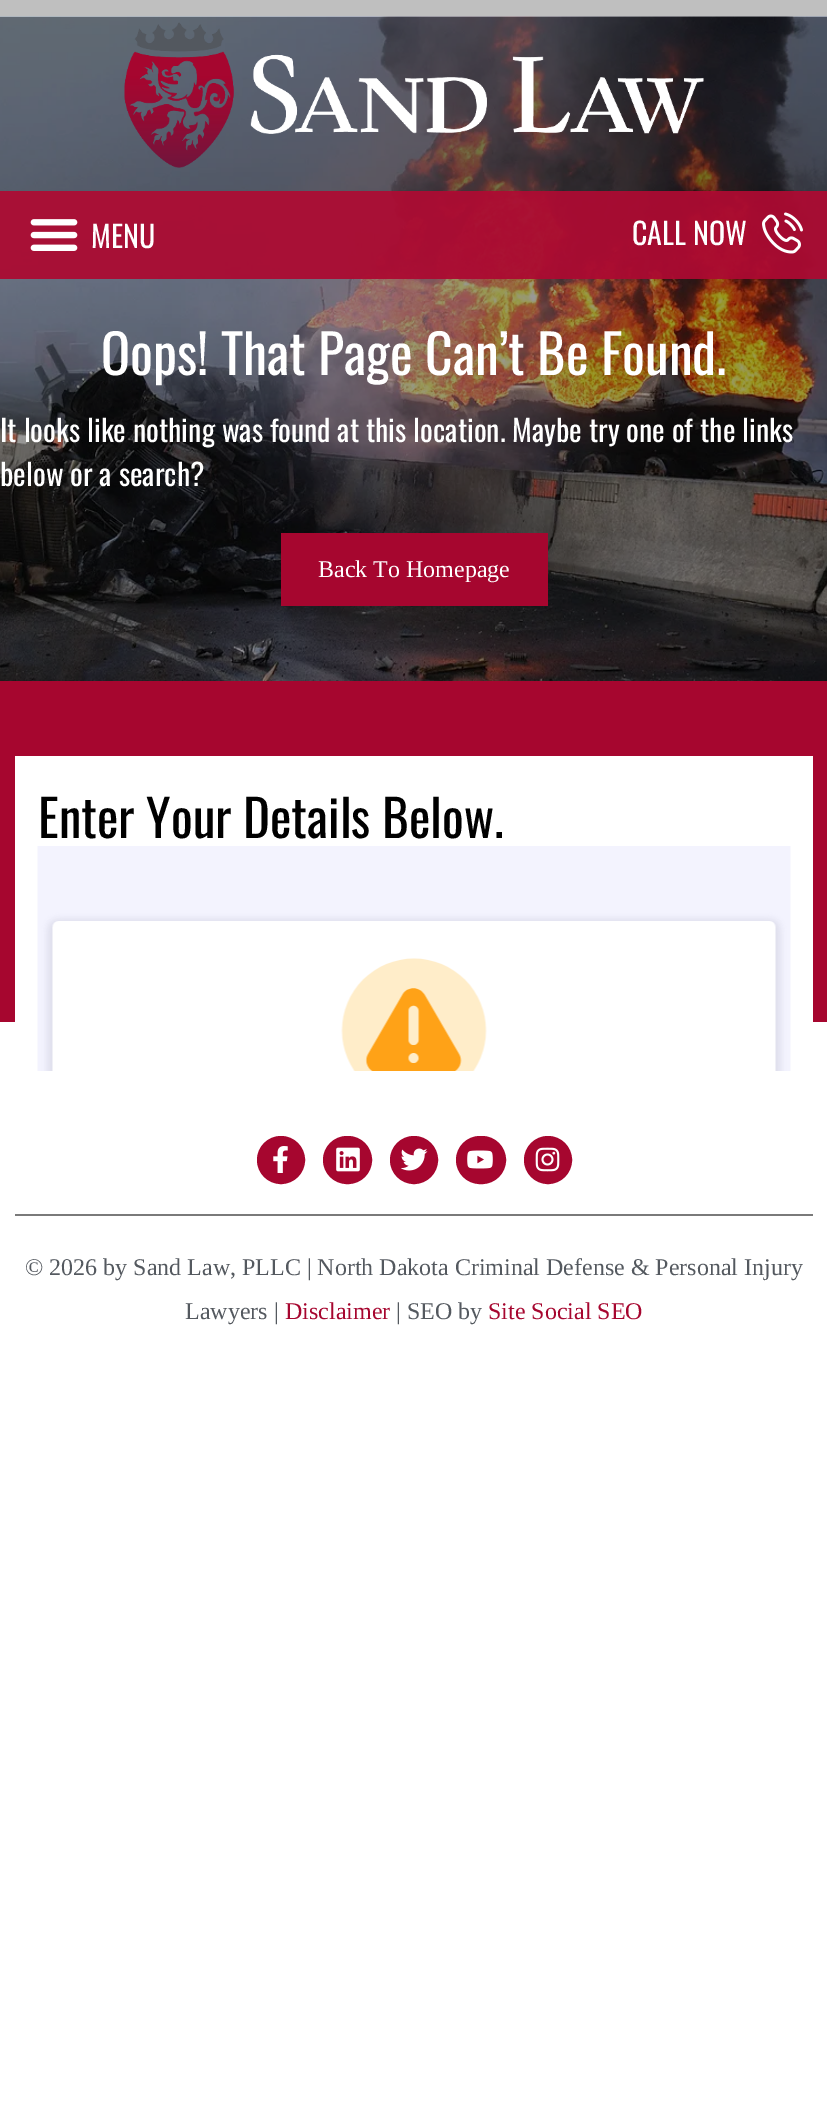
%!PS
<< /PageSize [827 2101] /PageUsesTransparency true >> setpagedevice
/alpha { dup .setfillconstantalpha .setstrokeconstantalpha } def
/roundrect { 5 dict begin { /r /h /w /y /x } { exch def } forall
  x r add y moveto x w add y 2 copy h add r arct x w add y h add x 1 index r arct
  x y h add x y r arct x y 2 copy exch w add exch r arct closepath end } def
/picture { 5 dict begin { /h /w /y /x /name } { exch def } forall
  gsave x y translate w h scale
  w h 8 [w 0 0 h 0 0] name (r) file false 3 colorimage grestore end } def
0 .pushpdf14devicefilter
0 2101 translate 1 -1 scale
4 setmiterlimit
1 setgray
0 0 827 2101 rectfill
(img4.rgb) 0 16 827 665 picture
0.25 alpha
0 setgray
0 0 827 191 rectfill
1 alpha
(img1.rgb) 124 22 580 146 picture
0.8 alpha
0.737 0.078 0.216 setrgbcolor
0 191 827 88 rectfill
0.7 alpha
0.651 0.024 0.184 setrgbcolor
0 191 827 88 rectfill
1 alpha
(img2.rgb) 30 219 48 32 picture
/Oswald-Regular [30 0 0 -30 0 0] selectfont
1 setgray
91 248 moveto (MENU) show
632 245 moveto (CALL NOW) show
(img3.rgb) 762 212 41 42 picture
/Oswald-Regular [54 0 0 -54 0 0] selectfont
101 375 moveto (Oops! That Page Can’t Be Found.) show
/Oswald-Regular [30 0 0 -30 0 0] selectfont
0 442 moveto (It looks like nothing was found at this location. Maybe try one of the links) show
0 486 moveto (below or a search?) show
0.651 0.024 0.184 setrgbcolor
281 533 267 73 rectfill
/LiberationSerif-Regular [24 0 0 -24 0 0] selectfont
1 setgray
318 577 moveto (Back To Homepage) show
0.651 0.024 0.184 setrgbcolor
0 681 827 341 rectfill
1 setgray
15 756 798 266 rectfill
/Oswald-Regular [51 0 0 -51 0 0] selectfont
0 setgray
38 838 moveto (Enter Your Details Below.) show
(img5.rgb) 37 846 754 225 picture
0.651 0.024 0.184 setrgbcolor
newpath 281 1160 22.5 0 360 arc closepath gsave fill grestore
3 setlinewidth
stroke
(img6.rgb) 273 1146 15 27 picture
324.5 1137.5 46 45 22.5 roundrect gsave fill grestore
stroke
(img7.rgb) 336 1147 24 25 picture
newpath 414 1160 22.5 0 360 arc closepath gsave fill grestore
stroke
(img8.rgb) 401 1148 27 23 picture
457.5 1137.5 47 45 22.5 roundrect gsave fill grestore
stroke
(img9.rgb) 467 1150 26 19 picture
newpath 548 1160 22.5 0 360 arc closepath gsave fill grestore
stroke
(img10.rgb) 535 1147 25 25 picture
0.478 setgray
15 1214 798 2 rectfill
/LiberationSerif-Regular [24 0 0 -24 0 0] selectfont
0.329 0.349 0.373 setrgbcolor
25 1275 moveto (© 2026 by Sand Law, PLLC | North Dakota Criminal Defense & Personal Injury) show
185 1319 moveto (Lawyers |) show
0.651 0.024 0.184 setrgbcolor
285 1319 moveto (Disclaimer) show
0.329 0.349 0.373 setrgbcolor
396 1319 moveto (| SEO by) show
0.651 0.024 0.184 setrgbcolor
488 1319 moveto (Site Social SEO) show
.poppdf14devicefilter showpage
